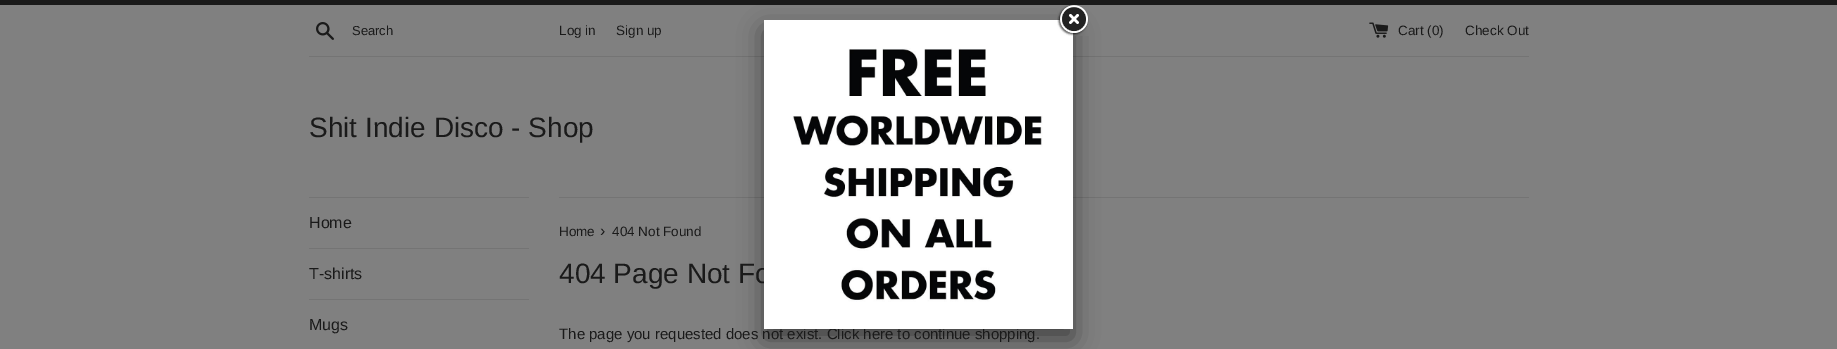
%!PS
<< /PageSize [1837 349] /PageUsesTransparency true >> setpagedevice
/alpha { dup .setfillconstantalpha .setstrokeconstantalpha } def
/roundrect { 5 dict begin { /r /h /w /y /x } { exch def } forall
  x r add y moveto x w add y 2 copy h add r arct x w add y h add x 1 index r arct
  x y h add x y r arct x y 2 copy exch w add exch r arct closepath end } def
/shadow { 12 dict begin { /a /b /q /h /w /y /x } { exch def } forall gsave /was 0 def
  9 -2 -9 { dup b mul 4 div /e exch def 1 sub .425 mul 2.718 exch exp 1 add a .99 .min exch div /now exch def
    1 1 now sub 1 was sub div sub alpha /was now def
    w h .min e 2 mul add 0 gt { x e sub y e sub w e 2 mul add h e 2 mul add
      q e add b .6 mul add w h .min 2 div e add .min 0 .max roundrect fill } if } for grestore end } def
/picture { 5 dict begin { /h /w /y /x /name } { exch def } forall
  gsave x y translate w h scale
  w h 8 [w 0 0 h 0 0] name (r) file false 3 colorimage grestore end } def
0 .pushpdf14devicefilter
0 349 translate 1 -1 scale
4 setmiterlimit
0.502 setgray
0 0 1837 349 rectfill
0.102 setgray
0 0 1837 5 rectfill
0.455 setgray
309 56 1220 1 rectfill
559 197 970 1 rectfill
0 setgray
764 30 309 309 0 12.5 0.5 shadow
/LiberationSans-Regular [28 0 0 -28 0 0] selectfont
0.102 setgray
559 283 moveto (404 Page Not Fo) show
/LiberationSans-Regular [15 0 0 -15 0 0] selectfont
559 339 moveto (The page you requested does not exist. Click here to continue shopping.) show
(img2.rgb) 764 20 309 309 picture
(img1.rgb) 1057 5 32 31 picture
(img3.rgb) 316 22 18 18 picture
/LiberationSans-Regular [13 0 0 -13 0 0] selectfont
352 35 moveto (Search) show
/LiberationSans-Regular [13.5 0 0 -13.5 0 0] selectfont
559 35 moveto (Log in) show
616 35 moveto (Sign up) show
(img4.rgb) 1369 22 20 16 picture
1398 35 moveto (Cart \(0\)) show
1465 35 moveto (Check Out) show
/LiberationSans-Regular [28 0 0 -28 0 0] selectfont
309 137 moveto (Shit Indie Disco - Shop) show
0.455 setgray
309 197 220 1 rectfill
309 248 220 1 rectfill
/LiberationSans-Regular [16 0 0 -16 0 0] selectfont
0.102 setgray
309 228 moveto (Home) show
0.455 setgray
309 299 220 1 rectfill
0.102 setgray
309 279 moveto (T-shirts) show
309 330 moveto (Mugs) show
/LiberationSans-Regular [13.5 0 0 -13.5 0 0] selectfont
559 236 moveto (Home) show
/LiberationSans-Regular [16 0 0 -16 0 0] selectfont
600 236 moveto (›) show
/LiberationSans-Regular [13.5 0 0 -13.5 0 0] selectfont
612 236 moveto (404 Not Found) show
.poppdf14devicefilter showpage
